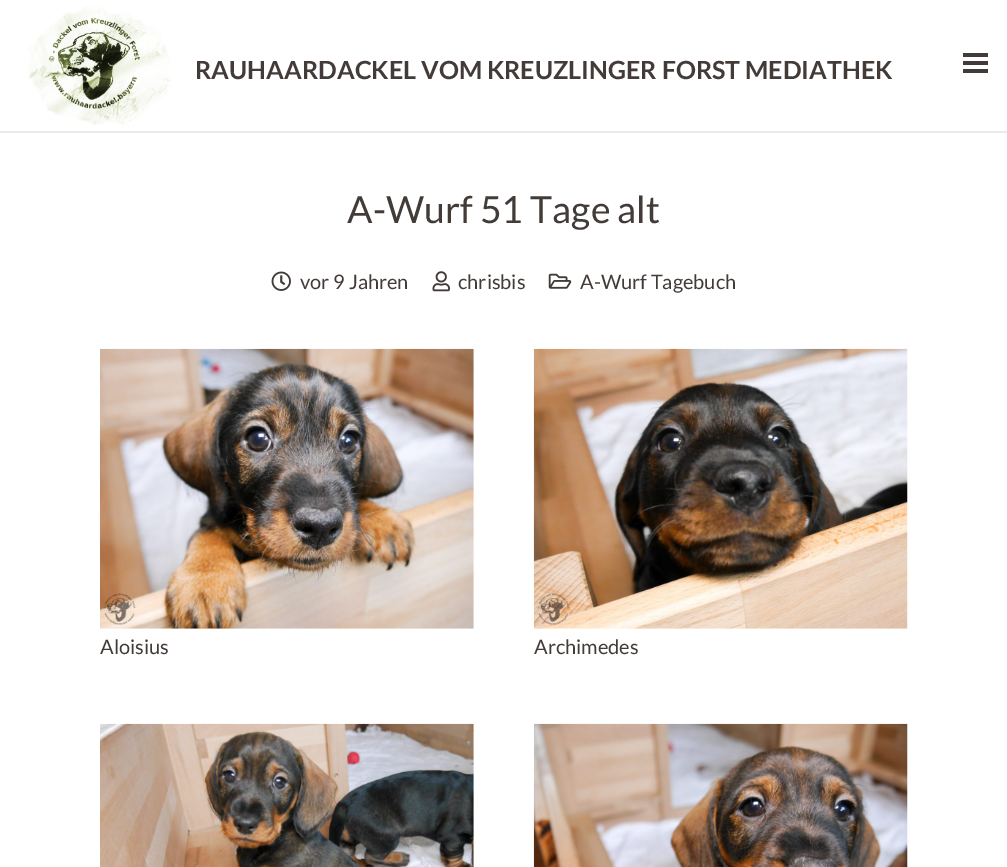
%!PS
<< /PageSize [1007 867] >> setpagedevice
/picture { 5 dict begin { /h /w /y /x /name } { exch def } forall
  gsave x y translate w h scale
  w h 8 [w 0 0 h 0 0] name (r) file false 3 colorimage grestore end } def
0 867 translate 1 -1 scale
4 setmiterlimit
1 setgray
0 0 1007 867 rectfill
0.922 setgray
newpath 0 131 moveto 0 133 lineto 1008 133 lineto 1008 45 lineto 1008 131 lineto closepath fill
(img1.rgb) 27 6 144 120 picture
/Lato-Bold [25 0 0 -25 0 0] selectfont
0.259 0.231 0.22 setrgbcolor
195 79 moveto (RAUHAARDACKEL VOM KREUZLINGER FORST MEDIATHEK) show
963 61 25 4 rectfill
963 53 25 4 rectfill
963 69 25 4 rectfill
/Lato-Regular [37.5 0 0 -37.5 0 0] selectfont
347 223 moveto (A-Wurf 51 Tage alt) show
(img2.rgb) 271 271 20 20 picture
/Lato-Regular [20 0 0 -20 0 0] selectfont
300 289 moveto (vor 9 Jahren) show
(img3.rgb) 432 271 18 21 picture
458 289 moveto (chrisbis) show
(img4.rgb) 548 273 24 16 picture
580 289 moveto (A-Wurf Tagebuch) show
(img5.rgb) 100 348 374 281 picture
100 654 moveto (Aloisius) show
(img6.rgb) 533 348 375 281 picture
534 654 moveto (Archimedes) show
(img7.rgb) 100 723 374 144 picture
(img8.rgb) 533 723 375 144 picture
showpage
